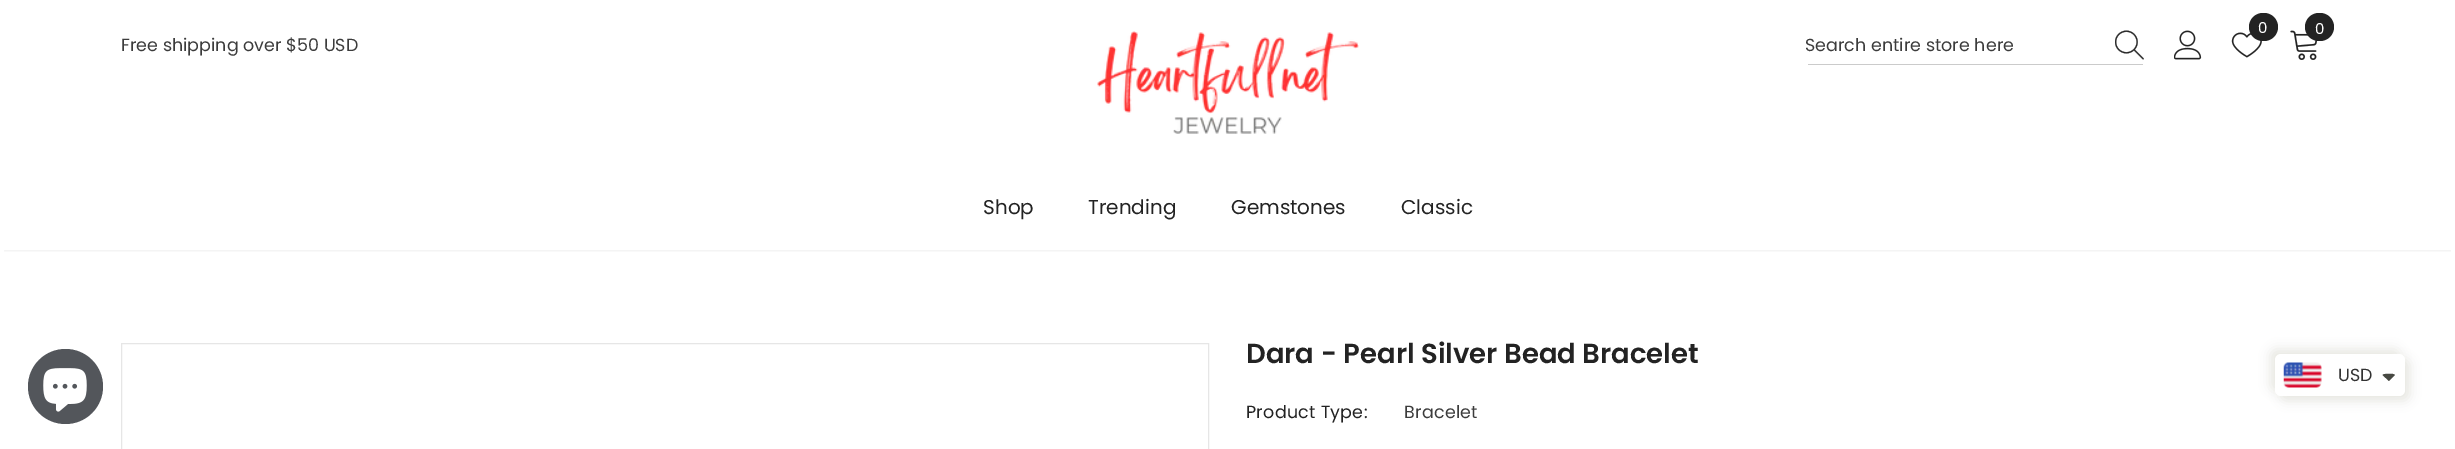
%!PS
<< /PageSize [2455 449] /PageUsesTransparency true >> setpagedevice
/alpha { dup .setfillconstantalpha .setstrokeconstantalpha } def
/roundrect { 5 dict begin { /r /h /w /y /x } { exch def } forall
  x r add y moveto x w add y 2 copy h add r arct x w add y h add x 1 index r arct
  x y h add x y r arct x y 2 copy exch w add exch r arct closepath end } def
/shadow { 12 dict begin { /a /b /q /h /w /y /x } { exch def } forall gsave /was 0 def
  9 -2 -9 { dup b mul 4 div /e exch def 1 sub .425 mul 2.718 exch exp 1 add a .99 .min exch div /now exch def
    1 1 now sub 1 was sub div sub alpha /was now def
    w h .min e 2 mul add 0 gt { x e sub y e sub w e 2 mul add h e 2 mul add
      q e add b .6 mul add w h .min 2 div e add .min 0 .max roundrect fill } if } for grestore end } def
/picture { 5 dict begin { /h /w /y /x /name } { exch def } forall
  gsave x y translate w h scale
  w h 8 [w 0 0 h 0 0] name (r) file false 3 colorimage grestore end } def
0 .pushpdf14devicefilter
0 449 translate 1 -1 scale
4 setmiterlimit
1 setgray
0 0 2455 449 rectfill
/Poppins-Regular [17.5 0 0 -17.5 0 0] selectfont
0.235 setgray
121 51 moveto (Free shipping over $50 USD) show
(img1.rgb) 1097 31 262 103 picture
(img2.rgb) 2231 32 31 26 picture
0.137 setgray
2249 13 29 28 14 roundrect fill
/Poppins-Regular [15 0 0 -15 0 0] selectfont
1 setgray
2258 33 moveto (0) show
(img3.rgb) 2290 30 28 30 picture
0.137 setgray
2305 13 29 28 14 roundrect fill
1 setgray
2315 34 moveto (0) show
0.796 setgray
1808 64 335 1 rectfill
/Poppins-Regular [17.5 0 0 -17.5 0 0] selectfont
0.235 setgray
1805 51 moveto (Search entire store here) show
(img4.rgb) 2115 30 29 30 picture
(img5.rgb) 2174 30 28 30 picture
gsave
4 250 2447 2 rectclip
0 setgray
4 183 2447 67 0 2 0.1 shadow
grestore
/Poppins-Regular [20 0 0 -20 0 0] selectfont
0.137 setgray
983 214 moveto (Shop) show
1088 214 moveto (Trending) show
1231 214 moveto (Gemstones) show
1401 214 moveto (Classic) show
0.325 0.337 0.357 setrgbcolor
newpath 65.5 386.5 37.5 0 360 arc closepath fill
(img6.rgb) 43 368 44 44 picture
0.902 setgray
121.5 343.5 1087 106 rectstroke
/Poppins-SemiBold [27.5 0 0 -27.5 0 0] selectfont
0.137 setgray
1246 363 moveto (Dara - Pearl Silver Bead Bracelet) show
/Poppins-Regular [17.5 0 0 -17.5 0 0] selectfont
1246 418 moveto 0.25 0 (Product Type:) ashow
0.235 setgray
1404 418 moveto 0.25 0 (Bracelet) ashow
0.91 0.91 0.886 setrgbcolor
2270 349 130 42 6 5.5 1 shadow
2280 359 130 42 6 5.5 1 shadow
1 setgray
2275 354 130 42 6 roundrect fill
(img7.rgb) 2283 362 39 26 picture
0.2 setgray
2338 381 moveto (USD) show
0.278 0.286 0.259 setrgbcolor
newpath 2385 374 moveto 2387.5 374 2393 373 2395 375 curveto 2389 381 lineto 2382.5 375 lineto 2383 374.5 2384 374 2385 374 curveto closepath fill
.poppdf14devicefilter showpage
